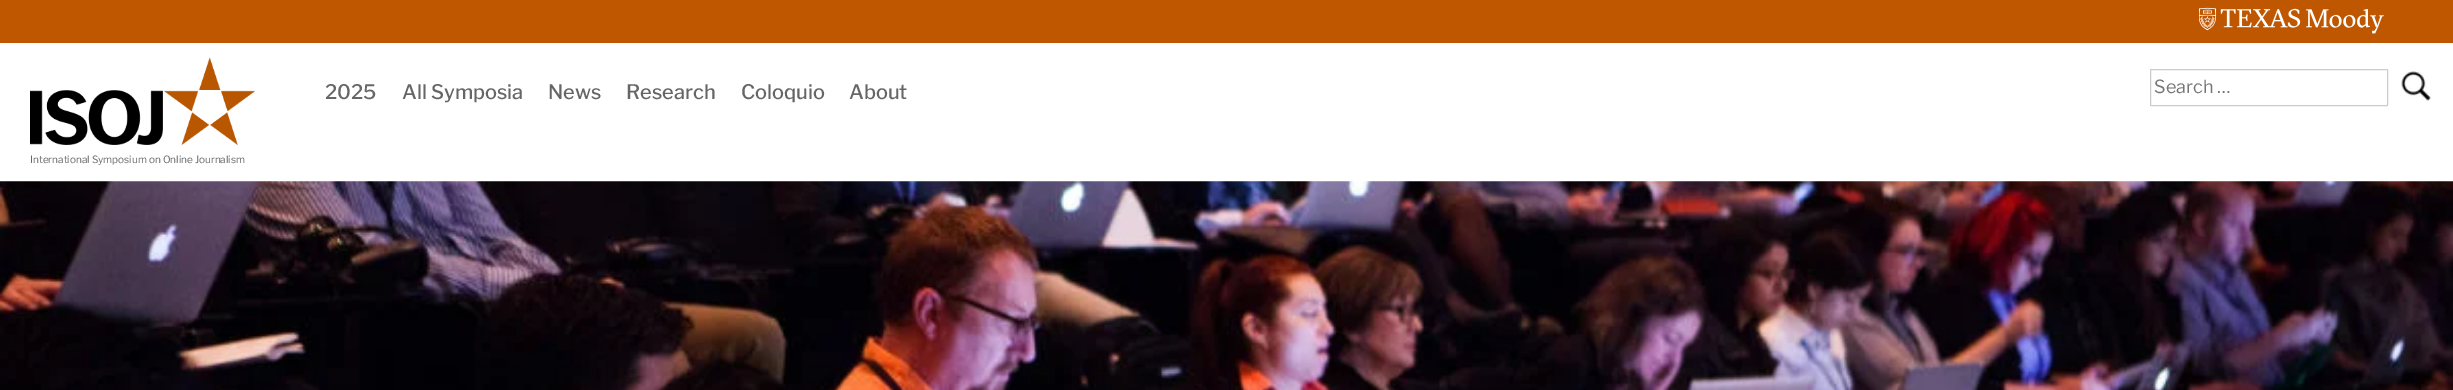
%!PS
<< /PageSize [2453 390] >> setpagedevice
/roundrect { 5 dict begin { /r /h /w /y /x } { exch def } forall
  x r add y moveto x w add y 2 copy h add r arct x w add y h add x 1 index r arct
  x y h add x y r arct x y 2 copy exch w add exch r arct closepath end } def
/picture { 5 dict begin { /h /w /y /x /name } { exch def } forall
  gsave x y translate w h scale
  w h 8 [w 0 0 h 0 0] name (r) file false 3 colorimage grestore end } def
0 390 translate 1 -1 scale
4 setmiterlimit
1 setgray
0 0 2453 390 rectfill
0.749 0.341 0 setrgbcolor
0 0 2453 43 rectfill
(img1.rgb) 2199 7 185 27 picture
/LibreFranklin-Medium [20 0 0 -20 0 0] selectfont
0.4 setgray
325 99 moveto (2025) show
402 99 moveto (All Symposia) show
548 99 moveto (News) show
626 99 moveto (Research) show
741 99 moveto (Coloquio) show
849 99 moveto (About) show
0.8 setgray
2150.5 69.5 237 36 0.5 roundrect stroke
/LibreFranklin-Regular [18 0 0 -18 0 0] selectfont
0.459 setgray
2154 93 moveto (Search …) show
(img2.rgb) 2401 71 30 30 picture
(img3.rgb) 30 57 225 88 picture
/LibreFranklin-Regular [10 0 0 -10 0 0] selectfont
0.4 setgray
30 163 moveto (International Symposium on Online Journalism) show
(img4.rgb) 0 181 2453 209 picture
showpage
